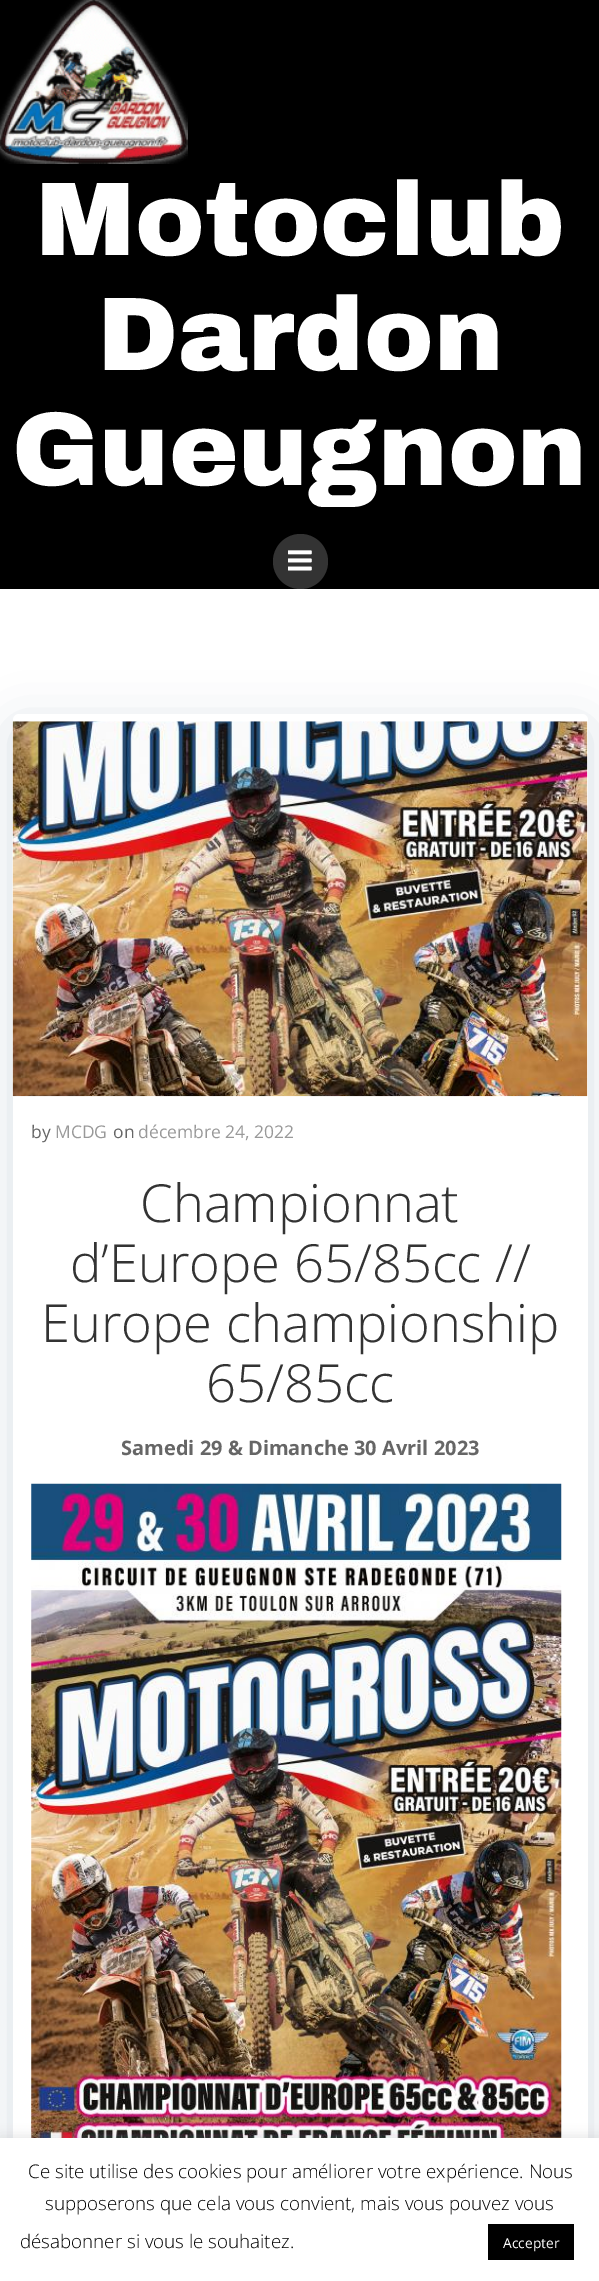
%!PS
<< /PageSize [599 2281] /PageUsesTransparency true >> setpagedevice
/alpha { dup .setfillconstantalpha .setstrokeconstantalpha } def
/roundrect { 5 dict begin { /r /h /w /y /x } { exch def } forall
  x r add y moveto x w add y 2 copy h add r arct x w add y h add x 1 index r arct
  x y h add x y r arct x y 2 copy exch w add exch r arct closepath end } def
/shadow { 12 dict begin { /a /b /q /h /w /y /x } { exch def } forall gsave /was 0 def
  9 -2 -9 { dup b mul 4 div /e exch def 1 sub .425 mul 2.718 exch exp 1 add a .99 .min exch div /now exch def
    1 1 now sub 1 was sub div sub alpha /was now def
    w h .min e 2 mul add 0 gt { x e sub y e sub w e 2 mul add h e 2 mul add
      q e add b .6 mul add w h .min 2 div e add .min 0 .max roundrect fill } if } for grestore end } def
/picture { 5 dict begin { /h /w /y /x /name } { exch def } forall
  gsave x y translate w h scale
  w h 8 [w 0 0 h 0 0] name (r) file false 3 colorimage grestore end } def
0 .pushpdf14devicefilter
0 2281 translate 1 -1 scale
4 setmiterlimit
1 setgray
0 0 599 2281 rectfill
0 setgray
0 0 599 589 rectfill
(img1.rgb) 0 0 188 164 picture
/ArchivoBlack-Black [104.5 0 0 -104.5 0 0] selectfont
1 setgray
36 255 moveto (Motoclub) show
97 370 moveto (Dardon) show
12 485 moveto (Gueugnon) show
0.2 setgray
newpath 300.5 561.5 27.5 0 360 arc closepath fill
(img2.rgb) 288 550 24 21 picture
0.004 0.2 0.29 setrgbcolor
13 726 575 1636 6 25 0.15 shadow
1 setgray
13 714 575 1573 6 roundrect fill
(img3.rgb) 12 721 576 376 picture
/OpenSans-Regular [17.5 0 0 -17.5 0 0] selectfont
0.4 setgray
31 1138 moveto (by) show
0.6 setgray
55 1138 moveto (MCDG) show
0.4 setgray
113 1138 moveto (on) show
0.6 setgray
138 1138 moveto (décembre 24, 2022) show
/OpenSans-Light [52.5 0 0 -52.5 0 0] selectfont
0.2 setgray
140 1222 moveto (Championnat) show
70 1282 moveto (d’Europe 65/85cc //) show
41 1342 moveto (Europe championship) show
206 1402 moveto (65/85cc) show
/OpenSans-Bold [20 0 0 -20 0 0] selectfont
0.4 setgray
121 1455 moveto (Samedi 29 & Dimanche 30 Avril 2023) show
(img4.rgb) 31 1483 531 655 picture
0.675 0.671 0.671 setrgbcolor
0 2136 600 144 0 6 0.3 shadow
1 setgray
0 2138 599 143 rectfill
/OpenSans-Light [18.75 0 0 -18.75 0 0] selectfont
0 setgray
28 2178 moveto (Ce site utilise des cookies pour améliorer votre expérience. Nous) show
45 2210 moveto (supposerons que cela vous convient, mais vous pouvez vous) show
20 2248 moveto (désabonner si vous le souhaitez.) show
488 2224 86 36 rectfill
/OpenSans-Regular [13.75 0 0 -13.75 0 0] selectfont
1 setgray
503 2248 moveto (Accepter) show
.poppdf14devicefilter showpage
